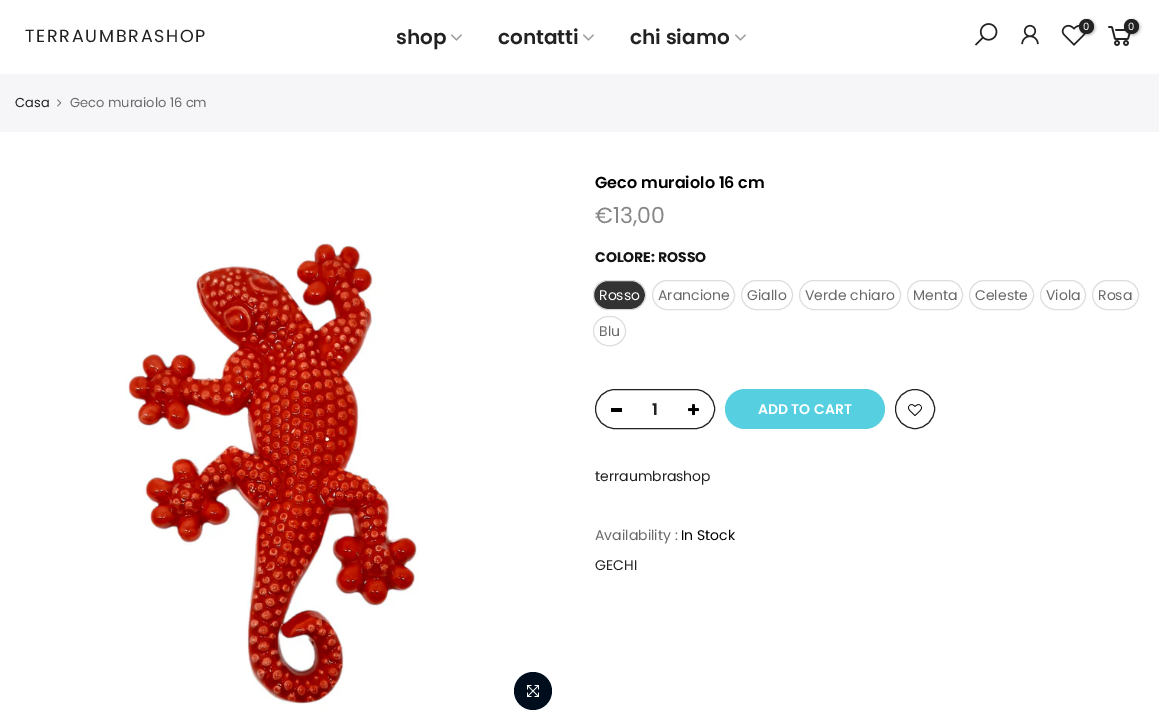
%!PS
<< /PageSize [1159 719] /PageUsesTransparency true >> setpagedevice
/alpha { dup .setfillconstantalpha .setstrokeconstantalpha } def
/roundrect { 5 dict begin { /r /h /w /y /x } { exch def } forall
  x r add y moveto x w add y 2 copy h add r arct x w add y h add x 1 index r arct
  x y h add x y r arct x y 2 copy exch w add exch r arct closepath end } def
/shadow { 12 dict begin { /a /b /q /h /w /y /x } { exch def } forall gsave /was 0 def
  9 -2 -9 { dup b mul 4 div /e exch def 1 sub .425 mul 2.718 exch exp 1 add a .99 .min exch div /now exch def
    1 1 now sub 1 was sub div sub alpha /was now def
    w h .min e 2 mul add 0 gt { x e sub y e sub w e 2 mul add h e 2 mul add
      q e add b .6 mul add w h .min 2 div e add .min 0 .max roundrect fill } if } for grestore end } def
/picture { 5 dict begin { /h /w /y /x /name } { exch def } forall
  gsave x y translate w h scale
  w h 8 [w 0 0 h 0 0] name (r) file false 3 colorimage grestore end } def
0 .pushpdf14devicefilter
0 719 translate 1 -1 scale
4 setmiterlimit
1 setgray
0 0 1159 719 rectfill
(img1.rgb) 975 23 23 23 picture
(img2.rgb) 1021 24 18 21 picture
(img3.rgb) 1061 24 25 22 picture
0 setgray
1080 20 15 15 7.5 1.5 0.3 shadow
0.133 setgray
newpath 1086.5 26.5 7.5 0 360 arc closepath fill
/Poppins-Regular [10 0 0 -10 0 0] selectfont
1 setgray
1083 30 moveto (0) show
(img4.rgb) 1108 26 23 20 picture
0 setgray
1125 20 15 15 7.5 1.5 0.3 shadow
0.133 setgray
newpath 1131.5 26.5 7.5 0 360 arc closepath fill
1 setgray
1128 30 moveto (0) show
/Poppins-Regular [17.5 0 0 -17.5 0 0] selectfont
0.133 setgray
25 42 moveto 1.75 0 (TERRAUMBRASHOP) ashow
/Poppins-SemiBold [20 0 0 -20 0 0] selectfont
396 44 moveto (shop) show
(img5.rgb) 451 34 11 7 picture
498 44 moveto (contatti) show
(img5.rgb) 583 34 11 7 picture
630 44 moveto (chi siamo) show
(img5.rgb) 735 34 11 7 picture
0.965 0.965 0.973 setrgbcolor
0 74 1159 58 rectfill
/Poppins-Regular [13 0 0 -13 0 0] selectfont
0.133 setgray
15 107 moveto (Casa) show
(img6.rgb) 57 99 5 8 picture
0.412 setgray
70 107 moveto (Geco muraiolo 16 cm) show
(img7.rgb) 15 172 550 547 picture
0 0.051 0.114 setrgbcolor
newpath 533 691 19 0 360 arc closepath fill
(img8.rgb) 527 685 12 12 picture
/Poppins-SemiBold [16 0 0 -16 0 0] selectfont
0.004 setgray
595 188 moveto (Geco muraiolo 16 cm) show
/Poppins-Regular [22 0 0 -22 0 0] selectfont
0.529 setgray
595 223 moveto (€13,00) show
/Poppins-Bold [14 0 0 -14 0 0] selectfont
0.082 setgray
595 262 moveto (COLORE: ROSSO) show
0.2 setgray
593.5 280.5 52 29 14.5 roundrect gsave fill grestore
0.867 setgray
stroke
/Poppins-Regular [14 0 0 -14 0 0] selectfont
1 setgray
599 300 moveto (Rosso) show
0.867 setgray
652.5 280.5 82 29 14.5 roundrect stroke
0.412 setgray
658 300 moveto (Arancione) show
0.867 setgray
741.5 280.5 51 29 14.5 roundrect stroke
0.412 setgray
747 300 moveto (Giallo) show
0.867 setgray
799.5 280.5 101 29 14.5 roundrect stroke
0.412 setgray
805 300 moveto (Verde chiaro) show
0.867 setgray
907.5 280.5 55 29 14.5 roundrect stroke
0.412 setgray
913 300 moveto (Menta) show
0.867 setgray
969.5 280.5 64 29 14.5 roundrect stroke
0.412 setgray
975 300 moveto (Celeste) show
0.867 setgray
1040.5 280.5 45 29 14.5 roundrect stroke
0.412 setgray
1046 300 moveto (Viola) show
0.867 setgray
1092.5 280.5 46 29 14.5 roundrect stroke
0.412 setgray
1098 300 moveto (Rosa) show
0.867 setgray
593.5 316.5 32 29 14.5 roundrect stroke
0.412 setgray
599 336 moveto (Blu) show
0.133 setgray
595.5 389.5 119 39 19.5 roundrect stroke
/Poppins-SemiBold [16 0 0 -16 0 0] selectfont
652 415 moveto (1) show
0 setgray
611 408 11 4 rectfill
(img9.rgb) 688 404 11 12 picture
0.337 0.812 0.882 setrgbcolor
725 389 160 40 20 roundrect fill
/Poppins-SemiBold [14 0 0 -14 0 0] selectfont
1 setgray
758 414 moveto (ADD TO CART) show
0.133 setgray
newpath 915 409 19.5 0 360 arc closepath stroke
(img10.rgb) 908 404 14 12 picture
1 setgray
newpath 909 404 moveto 911 402 914 401 916.5 401.5 curveto 926.5 403.5 925 418.5 915 418.5 curveto 913 418.5 910.5 417.5 909 416 curveto 909 416 moveto 905.5 412.5 905.5 407.5 909 404 curveto stroke
/Poppins-Regular [14 0 0 -14 0 0] selectfont
0.133 setgray
595 481 moveto (terraumbrashop) show
0.412 setgray
595 540 moveto (Availability :) show
0.004 setgray
681 540 moveto (In Stock) show
0.133 setgray
595 570 moveto (GECHI) show
.poppdf14devicefilter showpage
